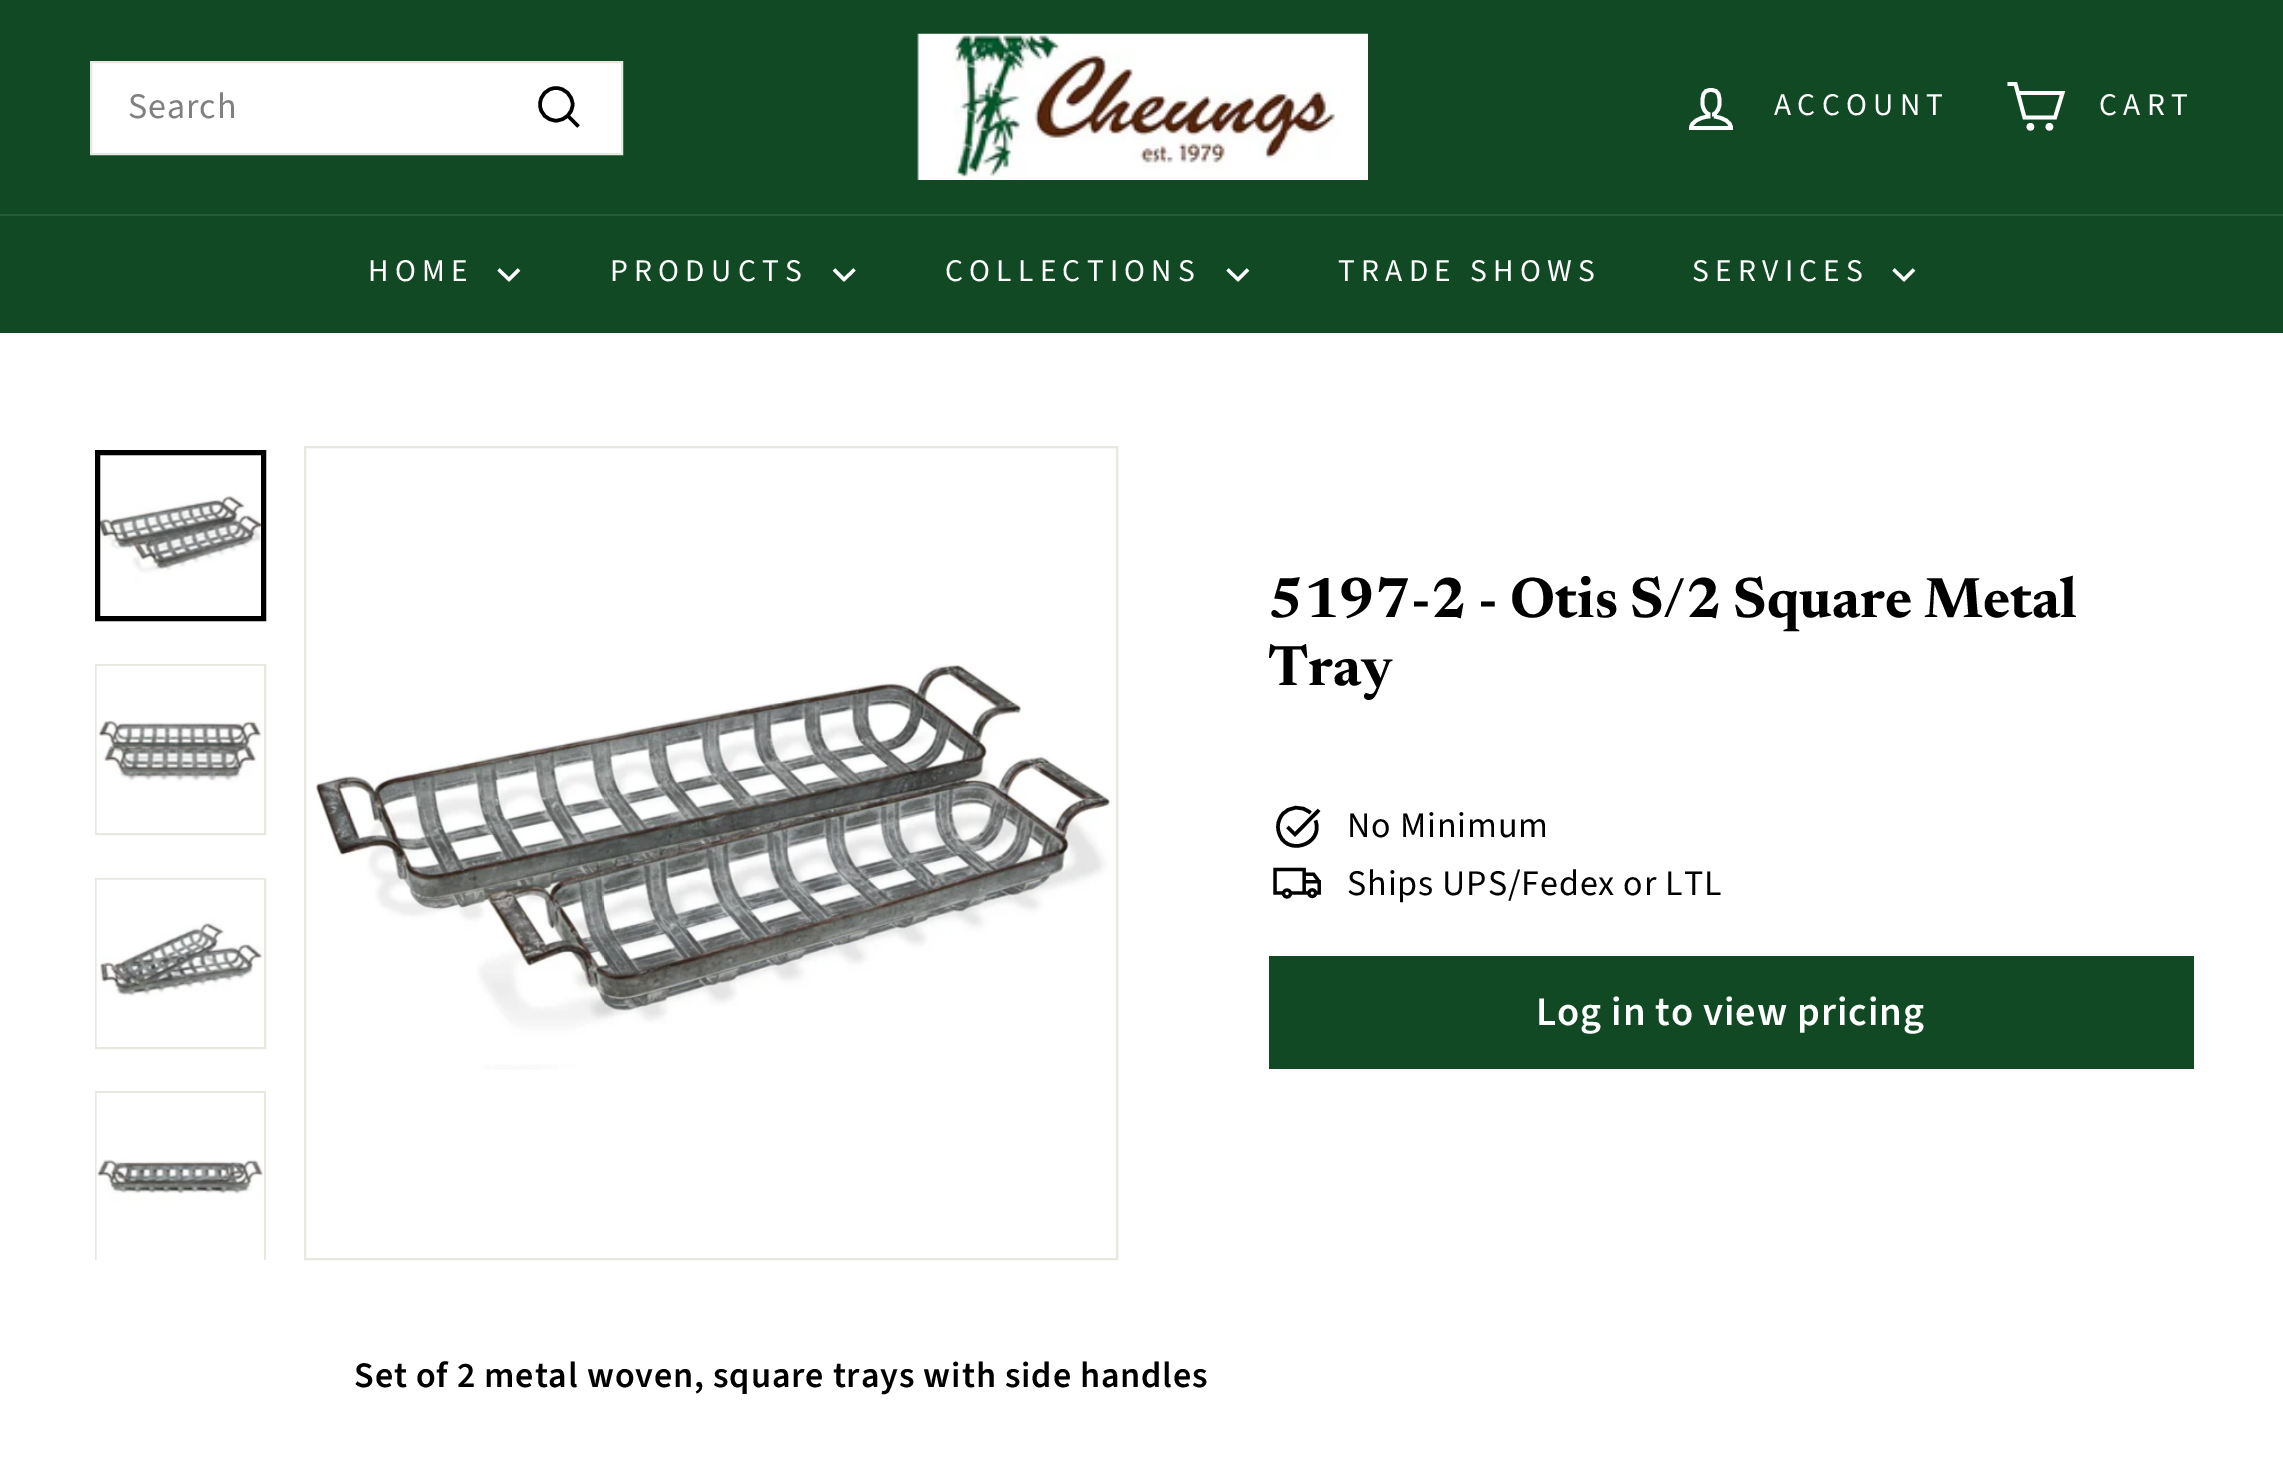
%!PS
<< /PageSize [2283 1472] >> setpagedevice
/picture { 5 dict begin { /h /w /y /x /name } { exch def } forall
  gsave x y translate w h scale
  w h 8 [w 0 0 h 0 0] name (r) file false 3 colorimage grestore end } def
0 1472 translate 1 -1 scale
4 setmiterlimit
1 setgray
0 0 2283 1472 rectfill
0.063 0.286 0.137 setrgbcolor
0 0 2283 214 rectfill
1 setgray
newpath 91 62 moveto 622 62 lineto 622 154 lineto 91 154 lineto closepath gsave fill grestore
0.91 0.91 0.882 setrgbcolor
2 setlinewidth
stroke
/SourceSansPro-Regular [36 0 0 -36 0 0] selectfont
0.502 setgray
128 118 moveto 0.9 0 (Search) ashow
0 setgray
3.5 setlinewidth
newpath 572.5 104.5 moveto 572.5 113.5 565 120.5 556 120.5 curveto 547 120.5 540 113.5 540 104.5 curveto 540 95.5 547 88 556 88 curveto 565 88 572.5 95.5 572.5 104.5 curveto closepath 578.5 126.5 moveto 568 116 lineto stroke
(img1.rgb) 917 33 451 147 picture
1 setgray
3.8 setlinewidth
newpath 1714 116.5 moveto 1714 114 lineto 1717 112.5 1719.5 108 1719.5 103.5 curveto 1719.5 96 1719.5 90 1711 90 curveto 1702.5 90 1702.5 96 1702.5 103.5 curveto 1702.5 108 1705 112.5 1708.5 114 curveto 1708.5 116.5 lineto 1698.5 117.5 1691 122.5 1691 128 curveto 1731 128 lineto 1731 122 1723.5 117.5 1714 116.5 curveto stroke
/SourceSansPro-Regular [31.5 0 0 -31.5 0 0] selectfont
1774 115 moveto 6.25 0 (ACCOUNT) ashow
newpath 2018 93 moveto 2062.5 93 lineto 2055 117.5 lineto 2024.5 117.5 lineto 2015.5 84 lineto 2007.5 84 lineto stroke
newpath 2030.4 126.8 1.9 0 360 arc closepath stroke
newpath 2049.4 126.8 1.9 0 360 arc closepath stroke
2099 115 moveto 6.25 0 (CART) ashow
0.063 0.286 0.137 setrgbcolor
newpath 0 214 moveto 0 333 lineto 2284 333 lineto 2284 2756 lineto 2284 214 lineto closepath fill
0.157 0.357 0.224 setrgbcolor
0 214 2283 2 rectfill
1 setgray
368 281 moveto 6.25 0 (HOME) ashow
3.2 setlinewidth
newpath 498.5 269.5 moveto 509 279.5 lineto 519 269.5 lineto stroke
610 281 moveto 6.25 0 (PRODUCTS) ashow
newpath 834 269.5 moveto 844 279.5 lineto 854.5 269.5 lineto stroke
945 281 moveto 6.25 0 (COLLECTIONS) ashow
newpath 1227.5 269.5 moveto 1238 279.5 lineto 1248 269.5 lineto stroke
1338 281 moveto 6.25 0 (TRADE SHOWS) ashow
1692 281 moveto 6.25 0 (SERVICES) ashow
newpath 1893.5 269.5 moveto 1904 279.5 lineto 1914 269.5 lineto stroke
(img2.rgb) 100 455 161 161 picture
0 setgray
5 setlinewidth
97.5 452.5 166 166 rectstroke
0.91 0.91 0.882 setrgbcolor
2 setlinewidth
96 665 169 169 rectstroke
(img3.rgb) 96 665 167 168 picture
96 879 169 169 rectstroke
(img4.rgb) 96 879 167 168 picture
gsave
95 1091 171 169 rectclip
96 1092 169 169 rectstroke
grestore
(img5.rgb) 96 1093 167 167 picture
305 447 812 812 rectstroke
(img6.rgb) 315 664 797 406 picture
/Newsreader-Bold [57.4 0 0 -57.4 0 0] selectfont
0 setgray
1268 617 moveto (5197-2 - Otis S/2 Square Metal) show
1268 685 moveto (Tray) show
3.5 setlinewidth
newpath 1315.5 820.5 moveto 1324.5 845.5 1284 857.5 1278.5 831 curveto 1277 825.5 1278.5 819.5 1282 815 curveto 1289 806 1302 805 1310.5 813 curveto 1287.5 827 moveto 1295 834.5 lineto 1319 810 lineto stroke
/SourceSansPro-Regular [36 0 0 -36 0 0] selectfont
1347 837 moveto 0.9 0 (No Minimum) ashow
(img7.rgb) 1273 867 48 32 picture
1347 895 moveto 0.9 0 (Ships UPS/Fedex or LTL) ashow
0.063 0.286 0.137 setrgbcolor
1269 956 925 113 rectfill
/SourceSansPro-SemiBold [40.5 0 0 -40.5 0 0] selectfont
1 setgray
1536 1025 moveto 0.9 0 (Log in to view pricing) ashow
/SourceSansPro-SemiBold [36 0 0 -36 0 0] selectfont
0 setgray
354 1387 moveto 0.9 0 (Set of 2 metal woven, square trays with side handles) ashow
showpage
